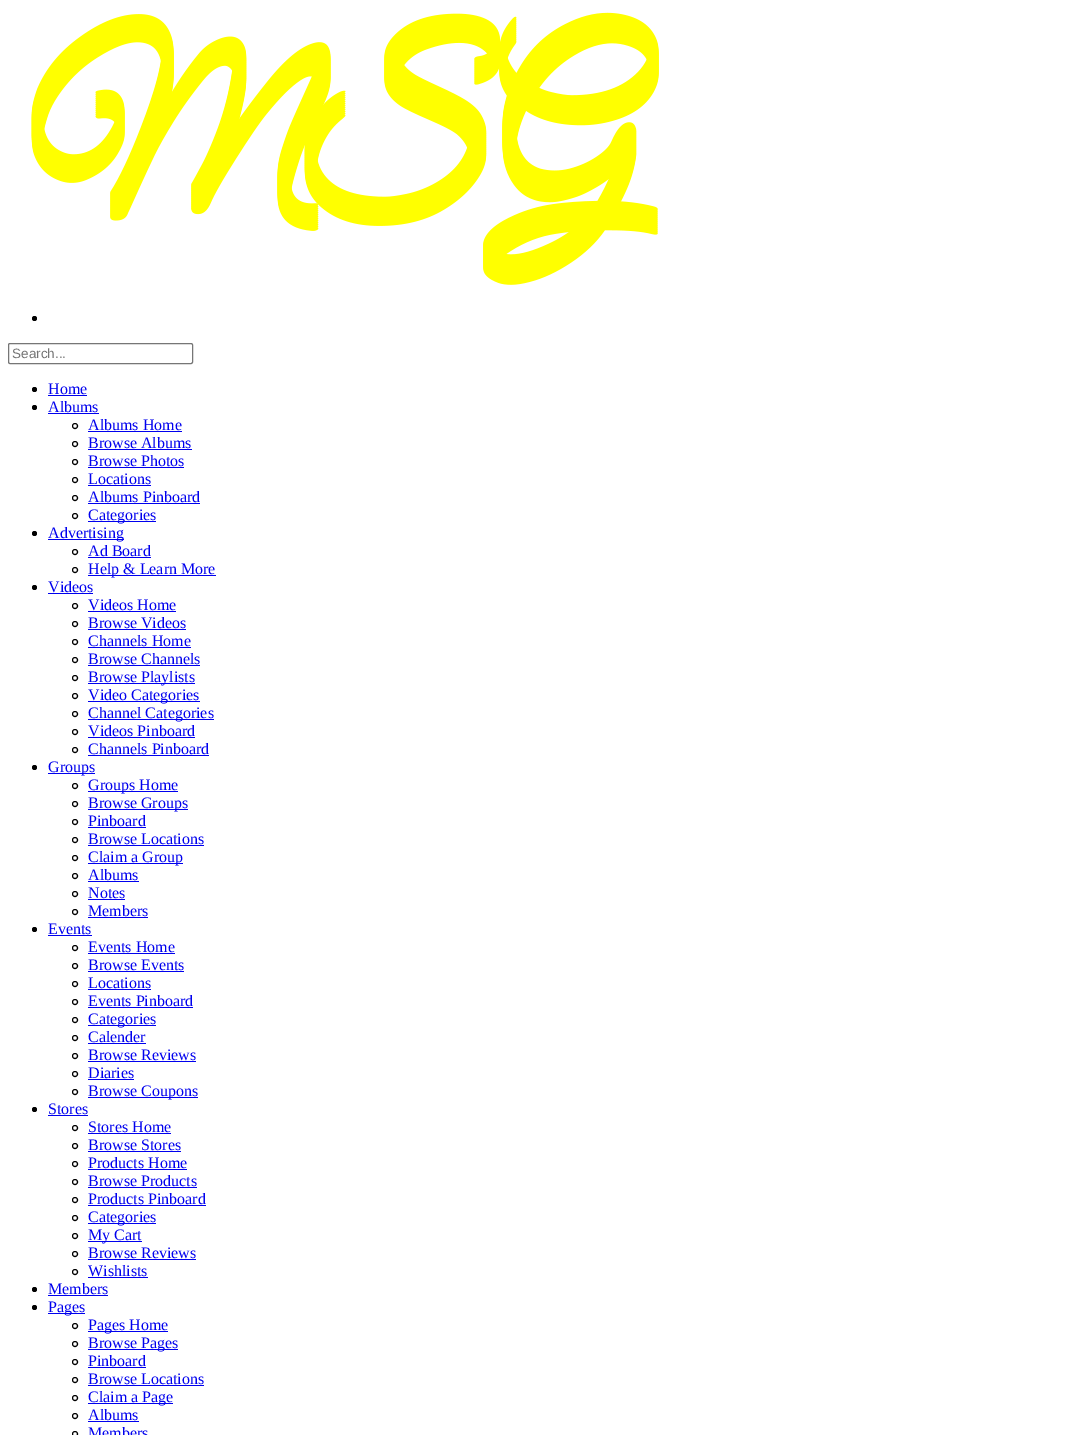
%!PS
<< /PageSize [1073 1435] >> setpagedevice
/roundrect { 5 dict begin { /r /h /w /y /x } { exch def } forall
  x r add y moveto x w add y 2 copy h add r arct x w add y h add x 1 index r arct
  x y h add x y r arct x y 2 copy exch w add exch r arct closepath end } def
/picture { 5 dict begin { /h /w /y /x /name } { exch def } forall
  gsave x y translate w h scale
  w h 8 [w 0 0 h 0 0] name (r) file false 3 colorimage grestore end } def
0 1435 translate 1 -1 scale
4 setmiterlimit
1 setgray
0 0 1073 1435 rectfill
(img1.rgb) 31 12 628 273 picture
0 setgray
newpath 34.5 318.5 2.5 0 360 arc closepath fill
0.463 setgray
8.5 343.5 184 20 1.5 roundrect stroke
/LiberationSans-Regular [13.5 0 0 -13.5 0 0] selectfont
0.459 setgray
12 358 moveto (Search...) show
0 setgray
newpath 34.5 389.5 2.5 0 360 arc closepath fill
/LiberationSerif-Regular [16 0 0 -16 0 0] selectfont
0 0 0.933 setrgbcolor
48 394 moveto (Home) show
48 395 39 1 rectfill
0 setgray
newpath 34.5 407.5 2.5 0 360 arc closepath fill
0 0 0.933 setrgbcolor
48 412 moveto (Albums) show
48 413 51 1 rectfill
0 setgray
newpath 75 426 2.5 0 360 arc closepath stroke
0 0 0.933 setrgbcolor
88 430 moveto (Albums Home) show
88 431 94 1 rectfill
0 setgray
newpath 75 444 2.5 0 360 arc closepath stroke
0 0 0.933 setrgbcolor
88 448 moveto (Browse Albums) show
88 449 104 1 rectfill
0 setgray
newpath 75 462 2.5 0 360 arc closepath stroke
0 0 0.933 setrgbcolor
88 466 moveto (Browse Photos) show
88 467 96 1 rectfill
0 setgray
newpath 75 480 2.5 0 360 arc closepath stroke
0 0 0.933 setrgbcolor
88 484 moveto (Locations) show
88 485 63 1 rectfill
0 setgray
newpath 75 498 2.5 0 360 arc closepath stroke
0 0 0.933 setrgbcolor
88 502 moveto (Albums Pinboard) show
88 503 112 1 rectfill
0 setgray
newpath 75 516 2.5 0 360 arc closepath stroke
0 0 0.933 setrgbcolor
88 521 68 1 rectfill
88 520 moveto (Categories) show
0 setgray
newpath 34.5 533.5 2.5 0 360 arc closepath fill
0 0 0.933 setrgbcolor
48 539 76 1 rectfill
48 538 moveto (Advertising) show
0 setgray
newpath 75 552 2.5 0 360 arc closepath stroke
0 0 0.933 setrgbcolor
88 556 moveto (Ad Board) show
88 557 63 1 rectfill
0 setgray
newpath 75 570 2.5 0 360 arc closepath stroke
0 0 0.933 setrgbcolor
88 575 128 1 rectfill
88 574 moveto (Help & Learn More) show
0 setgray
newpath 34.5 587.5 2.5 0 360 arc closepath fill
0 0 0.933 setrgbcolor
48 592 moveto (Videos) show
48 593 45 1 rectfill
0 setgray
newpath 75 606 2.5 0 360 arc closepath stroke
0 0 0.933 setrgbcolor
88 610 moveto (Videos Home) show
88 611 88 1 rectfill
0 setgray
newpath 75 624 2.5 0 360 arc closepath stroke
0 0 0.933 setrgbcolor
88 628 moveto (Browse Videos) show
88 629 98 1 rectfill
0 setgray
newpath 75 642 2.5 0 360 arc closepath stroke
0 0 0.933 setrgbcolor
88 646 moveto (Channels Home) show
88 647 103 1 rectfill
0 setgray
newpath 75 660 2.5 0 360 arc closepath stroke
0 0 0.933 setrgbcolor
88 664 moveto (Browse Channels) show
88 665 112 1 rectfill
0 setgray
newpath 75 678 2.5 0 360 arc closepath stroke
0 0 0.933 setrgbcolor
88 683 107 1 rectfill
88 682 moveto (Browse Playlists) show
0 setgray
newpath 75 696 2.5 0 360 arc closepath stroke
0 0 0.933 setrgbcolor
88 701 112 1 rectfill
88 700 moveto (Video Categories) show
0 setgray
newpath 75 714 2.5 0 360 arc closepath stroke
0 0 0.933 setrgbcolor
88 719 126 1 rectfill
88 718 moveto (Channel Categories) show
0 setgray
newpath 75 732 2.5 0 360 arc closepath stroke
0 0 0.933 setrgbcolor
88 736 moveto (Videos Pinboard) show
88 737 107 1 rectfill
0 setgray
newpath 75 750 2.5 0 360 arc closepath stroke
0 0 0.933 setrgbcolor
88 754 moveto (Channels Pinboard) show
88 755 121 1 rectfill
0 setgray
newpath 34.5 767.5 2.5 0 360 arc closepath fill
0 0 0.933 setrgbcolor
48 773 47 1 rectfill
48 772 moveto (Groups) show
0 setgray
newpath 75 786 2.5 0 360 arc closepath stroke
0 0 0.933 setrgbcolor
88 791 90 1 rectfill
88 790 moveto (Groups Home) show
0 setgray
newpath 75 804 2.5 0 360 arc closepath stroke
0 0 0.933 setrgbcolor
88 809 100 1 rectfill
88 808 moveto (Browse Groups) show
0 setgray
newpath 75 822 2.5 0 360 arc closepath stroke
0 0 0.933 setrgbcolor
88 826 moveto (Pinboard) show
88 827 58 1 rectfill
0 setgray
newpath 75 840 2.5 0 360 arc closepath stroke
0 0 0.933 setrgbcolor
88 844 moveto (Browse Locations) show
88 845 116 1 rectfill
0 setgray
newpath 75 858 2.5 0 360 arc closepath stroke
0 0 0.933 setrgbcolor
88 863 95 1 rectfill
88 862 moveto (Claim a Group) show
0 setgray
newpath 75 876 2.5 0 360 arc closepath stroke
0 0 0.933 setrgbcolor
88 880 moveto (Albums) show
88 881 51 1 rectfill
0 setgray
newpath 75 894 2.5 0 360 arc closepath stroke
0 0 0.933 setrgbcolor
88 898 moveto (Notes) show
88 899 37 1 rectfill
0 setgray
newpath 75 912 2.5 0 360 arc closepath stroke
0 0 0.933 setrgbcolor
88 916 moveto (Members) show
88 917 60 1 rectfill
0 setgray
newpath 34.5 929.5 2.5 0 360 arc closepath fill
0 0 0.933 setrgbcolor
48 934 moveto (Events) show
48 935 44 1 rectfill
0 setgray
newpath 75 948 2.5 0 360 arc closepath stroke
0 0 0.933 setrgbcolor
88 952 moveto (Events Home) show
88 953 87 1 rectfill
0 setgray
newpath 75 966 2.5 0 360 arc closepath stroke
0 0 0.933 setrgbcolor
88 970 moveto (Browse Events) show
88 971 96 1 rectfill
0 setgray
newpath 75 984 2.5 0 360 arc closepath stroke
0 0 0.933 setrgbcolor
88 988 moveto (Locations) show
88 989 63 1 rectfill
0 setgray
newpath 75 1002 2.5 0 360 arc closepath stroke
0 0 0.933 setrgbcolor
88 1006 moveto (Events Pinboard) show
88 1007 105 1 rectfill
0 setgray
newpath 75 1020 2.5 0 360 arc closepath stroke
0 0 0.933 setrgbcolor
88 1025 68 1 rectfill
88 1024 moveto (Categories) show
0 setgray
newpath 75 1038 2.5 0 360 arc closepath stroke
0 0 0.933 setrgbcolor
88 1042 moveto (Calender) show
88 1043 58 1 rectfill
0 setgray
newpath 75 1056 2.5 0 360 arc closepath stroke
0 0 0.933 setrgbcolor
88 1060 moveto (Browse Reviews) show
88 1061 108 1 rectfill
0 setgray
newpath 75 1074 2.5 0 360 arc closepath stroke
0 0 0.933 setrgbcolor
88 1078 moveto (Diaries) show
88 1079 46 1 rectfill
0 setgray
newpath 75 1092 2.5 0 360 arc closepath stroke
0 0 0.933 setrgbcolor
88 1097 110 1 rectfill
88 1096 moveto (Browse Coupons) show
0 setgray
newpath 34.5 1109.5 2.5 0 360 arc closepath fill
0 0 0.933 setrgbcolor
48 1114 moveto (Stores) show
48 1115 40 1 rectfill
0 setgray
newpath 75 1128 2.5 0 360 arc closepath stroke
0 0 0.933 setrgbcolor
88 1132 moveto (Stores Home) show
88 1133 83 1 rectfill
0 setgray
newpath 75 1146 2.5 0 360 arc closepath stroke
0 0 0.933 setrgbcolor
88 1150 moveto (Browse Stores) show
88 1151 93 1 rectfill
0 setgray
newpath 75 1164 2.5 0 360 arc closepath stroke
0 0 0.933 setrgbcolor
88 1168 moveto (Products Home) show
88 1169 99 1 rectfill
0 setgray
newpath 75 1182 2.5 0 360 arc closepath stroke
0 0 0.933 setrgbcolor
88 1186 moveto (Browse Products) show
88 1187 109 1 rectfill
0 setgray
newpath 75 1200 2.5 0 360 arc closepath stroke
0 0 0.933 setrgbcolor
88 1204 moveto (Products Pinboard) show
88 1205 118 1 rectfill
0 setgray
newpath 75 1218 2.5 0 360 arc closepath stroke
0 0 0.933 setrgbcolor
88 1223 68 1 rectfill
88 1222 moveto (Categories) show
0 setgray
newpath 75 1236 2.5 0 360 arc closepath stroke
0 0 0.933 setrgbcolor
88 1241 54 1 rectfill
88 1240 moveto (My Cart) show
0 setgray
newpath 75 1254 2.5 0 360 arc closepath stroke
0 0 0.933 setrgbcolor
88 1258 moveto (Browse Reviews) show
88 1259 108 1 rectfill
0 setgray
newpath 75 1272 2.5 0 360 arc closepath stroke
0 0 0.933 setrgbcolor
88 1276 moveto (Wishlists) show
88 1277 60 1 rectfill
0 setgray
newpath 34.5 1289.5 2.5 0 360 arc closepath fill
0 0 0.933 setrgbcolor
48 1294 moveto (Members) show
48 1295 60 1 rectfill
0 setgray
newpath 34.5 1307.5 2.5 0 360 arc closepath fill
0 0 0.933 setrgbcolor
48 1313 37 1 rectfill
48 1312 moveto (Pages) show
0 setgray
newpath 75 1326 2.5 0 360 arc closepath stroke
0 0 0.933 setrgbcolor
88 1331 80 1 rectfill
88 1330 moveto (Pages Home) show
0 setgray
newpath 75 1344 2.5 0 360 arc closepath stroke
0 0 0.933 setrgbcolor
88 1349 90 1 rectfill
88 1348 moveto (Browse Pages) show
0 setgray
newpath 75 1362 2.5 0 360 arc closepath stroke
0 0 0.933 setrgbcolor
88 1366 moveto (Pinboard) show
88 1367 58 1 rectfill
0 setgray
newpath 75 1380 2.5 0 360 arc closepath stroke
0 0 0.933 setrgbcolor
88 1384 moveto (Browse Locations) show
88 1385 116 1 rectfill
0 setgray
newpath 75 1398 2.5 0 360 arc closepath stroke
0 0 0.933 setrgbcolor
88 1403 85 1 rectfill
88 1402 moveto (Claim a Page) show
0 setgray
newpath 75 1416 2.5 0 360 arc closepath stroke
0 0 0.933 setrgbcolor
88 1420 moveto (Albums) show
88 1421 51 1 rectfill
0 setgray
newpath 75 1434 2.5 0 360 arc closepath stroke
0 0 0.933 setrgbcolor
88 1438 moveto (Members) show
showpage
